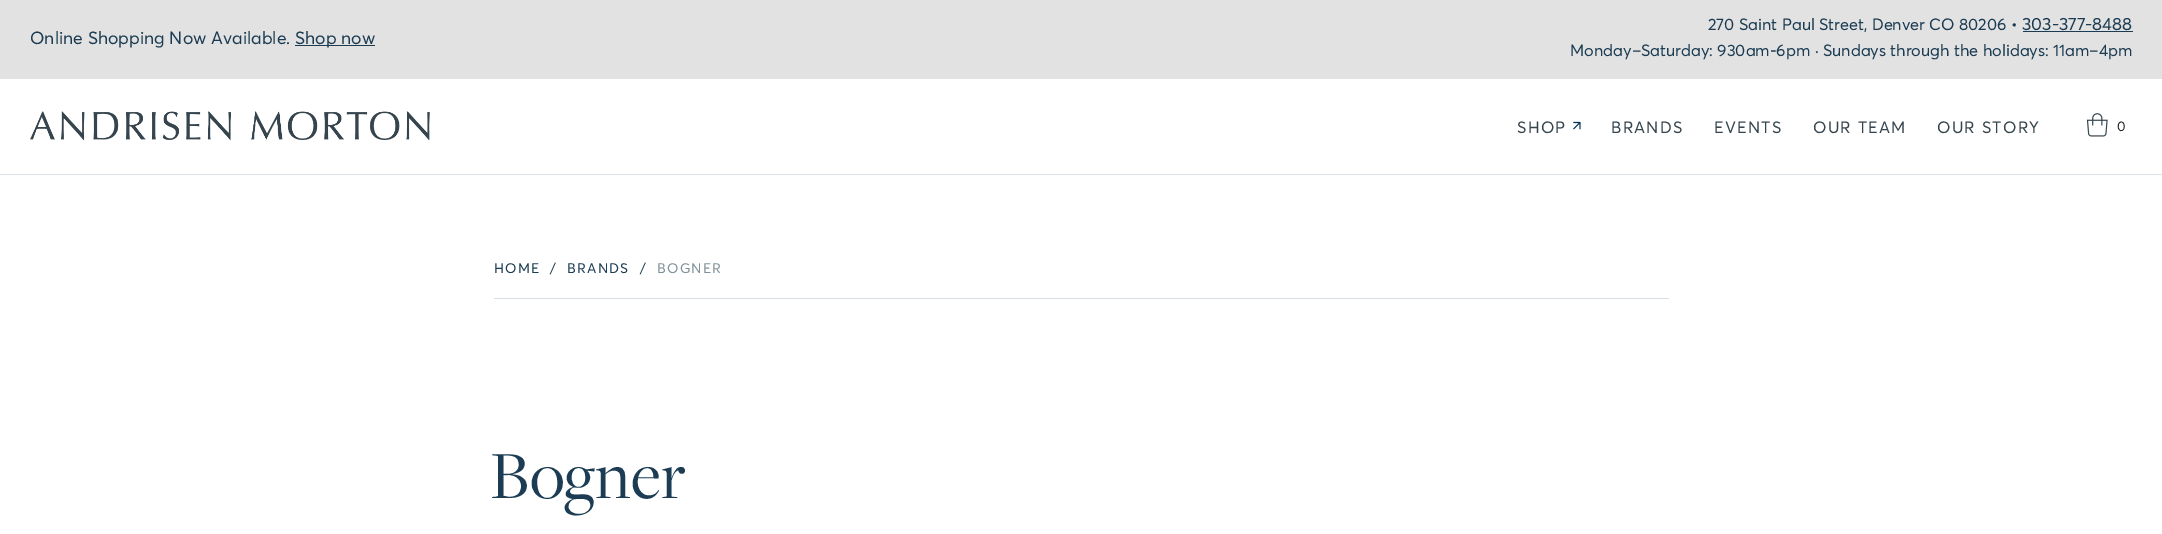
%!PS
<< /PageSize [2162 534] >> setpagedevice
/picture { 5 dict begin { /h /w /y /x /name } { exch def } forall
  gsave x y translate w h scale
  w h 8 [w 0 0 h 0 0] name (r) file false 3 colorimage grestore end } def
0 534 translate 1 -1 scale
4 setmiterlimit
1 setgray
0 0 2162 534 rectfill
0.886 setgray
0 0 2162 79 rectfill
/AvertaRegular-Regular [17.5 0 0 -17.5 0 0] selectfont
0.106 0.235 0.322 setrgbcolor
30 44 moveto (Online Shopping Now Available.) show
295 45 80 1 rectfill
295 44 moveto (Shop now) show
/AvertaRegular-Regular [16.25 0 0 -16.25 0 0] selectfont
1708 30 moveto (270 Saint Paul Street, Denver CO 80206 •) show
/AvertaRegular-Regular [17.5 0 0 -17.5 0 0] selectfont
2022 30 moveto (303-377-8488) show
2023 31 110 1 rectfill
/AvertaRegular-Regular [16.25 0 0 -16.25 0 0] selectfont
1570 56 moveto (Monday–Saturday: 930am-6pm · Sundays through the holidays: 11am–4pm) show
0.863 0.886 0.898 setrgbcolor
0 174 2162 1 rectfill
(img1.rgb) 30 111 400 29 picture
0.208 0.267 0.302 setrgbcolor
1517 133 moveto 1.25 0 (SHOP) ashow
(img2.rgb) 1573 121 8 9 picture
1611 133 moveto 1.25 0 (BRANDS) ashow
1714 133 moveto 1.25 0 (EVENTS) ashow
1813 133 moveto 1.25 0 (OUR TEAM) ashow
1937 133 moveto 1.25 0 (OUR STORY) ashow
(img3.rgb) 2086 113 22 24 picture
/AvertaRegular-Regular [13.75 0 0 -13.75 0 0] selectfont
0.137 0.153 0.165 setrgbcolor
2117 131 moveto (0) show
0.839 0.871 0.894 setrgbcolor
494 298 1175 1 rectfill
0.106 0.235 0.322 setrgbcolor
494 273 moveto 1.25 0 (HOME) ashow
550 273 moveto 1.25 0 (/) ashow
567 273 moveto 1.25 0 (BRANDS) ashow
640 273 moveto 1.25 0 (/) ashow
0.506 0.565 0.6 setrgbcolor
657 273 moveto 1.25 0 (BOGNER) ashow
/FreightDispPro-Regular [70 0 0 -70 0 0] selectfont
0.106 0.235 0.322 setrgbcolor
490 498 moveto (Bogner) show
showpage
